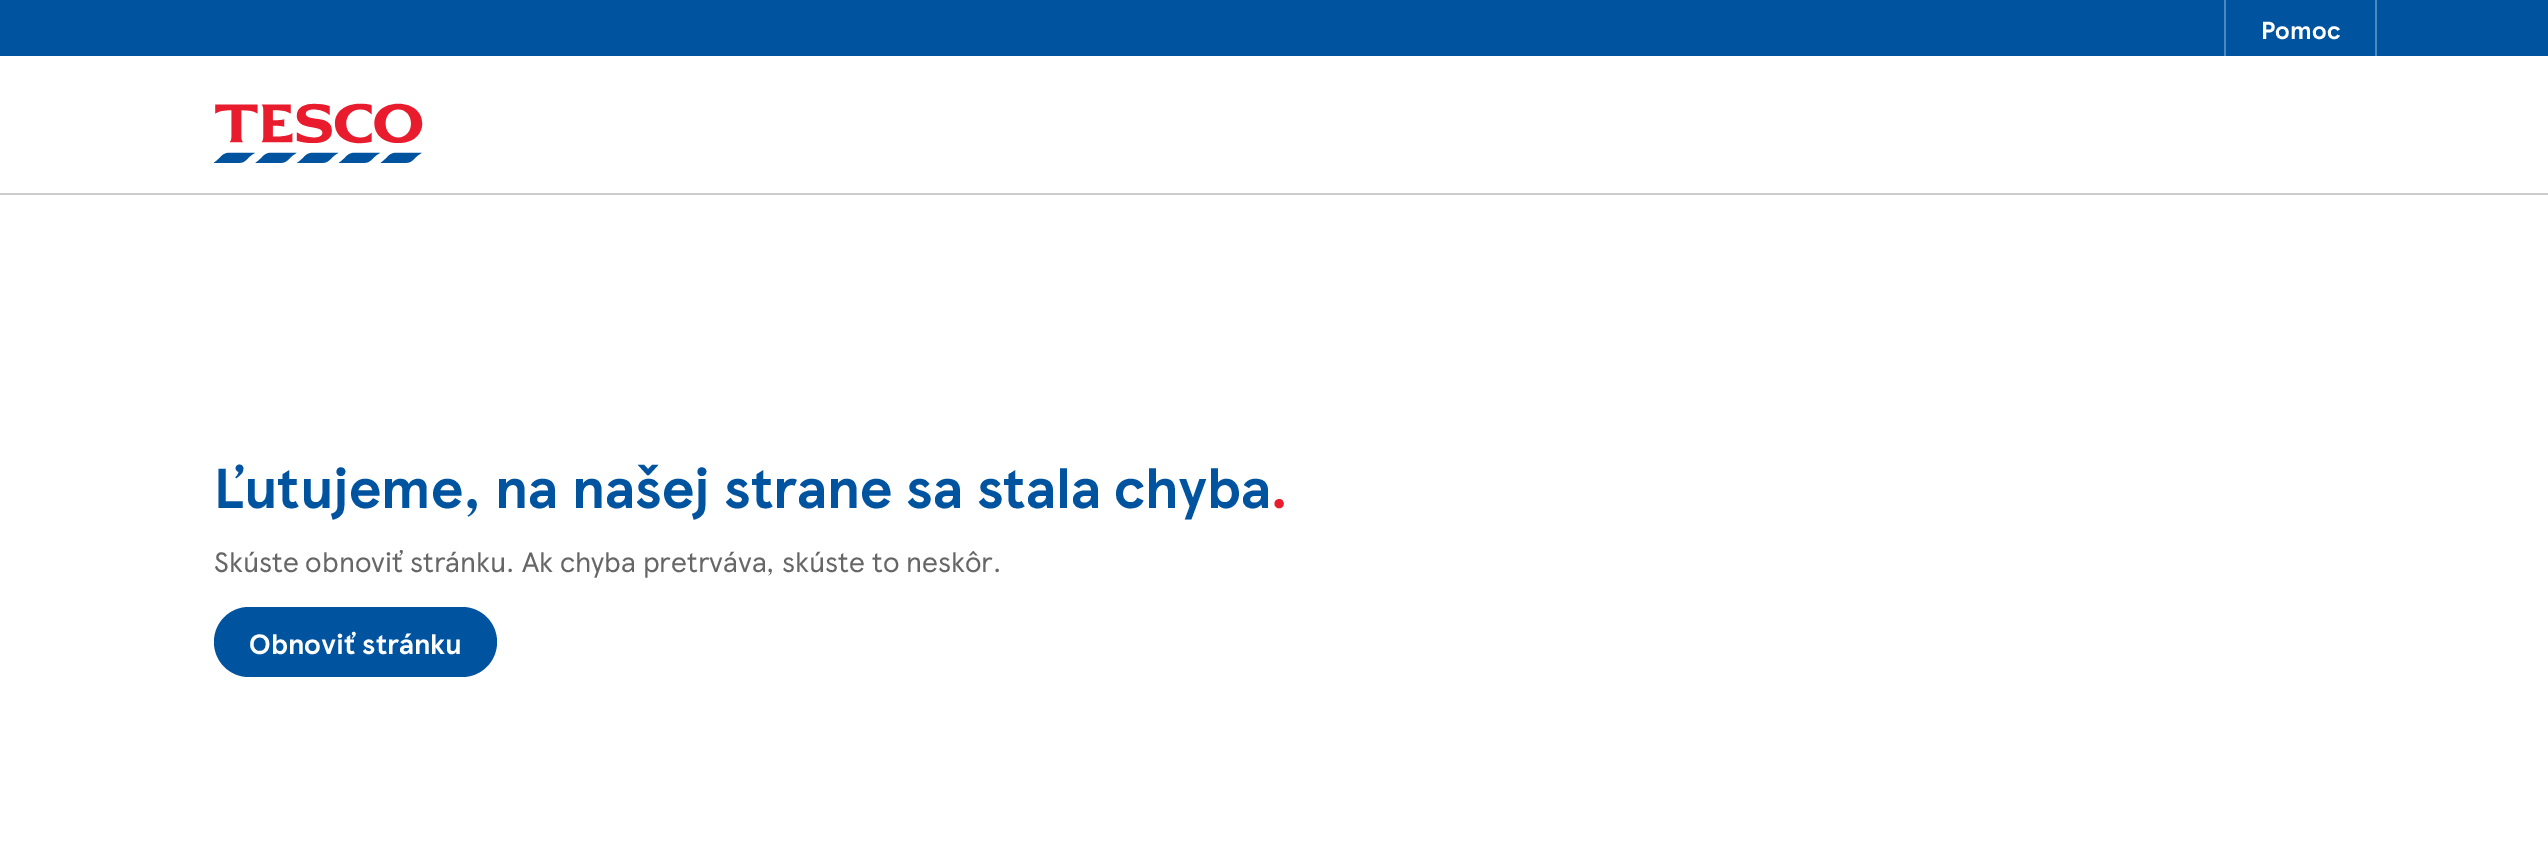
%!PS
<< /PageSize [2548 843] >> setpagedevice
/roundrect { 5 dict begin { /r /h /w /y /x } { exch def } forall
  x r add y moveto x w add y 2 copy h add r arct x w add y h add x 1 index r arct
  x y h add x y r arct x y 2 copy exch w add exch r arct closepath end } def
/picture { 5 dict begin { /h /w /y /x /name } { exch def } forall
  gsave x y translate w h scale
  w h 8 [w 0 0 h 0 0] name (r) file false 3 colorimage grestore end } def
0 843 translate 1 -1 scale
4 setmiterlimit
1 setgray
0 0 2548 843 rectfill
0 0.325 0.624 setrgbcolor
0 0 2548 56 rectfill
0.302 0.529 0.737 setrgbcolor
2375 0 2 56 rectfill
2224 0 2 56 rectfill
/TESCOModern-Bold [24.5 0 0 -24.5 0 0] selectfont
1 setgray
2261 39 moveto (Pomoc) show
(img1.rgb) 213 103 210 60 picture
0.8 setgray
0 193 2548 2 rectfill
/TESCOModern-Bold [56 0 0 -56 0 0] selectfont
0 0.325 0.624 setrgbcolor
214 508 moveto (Ľutujeme, na našej strane sa stala chyba) show
0.91 0.11 0.176 setrgbcolor
1270 508 moveto (.) show
/TESCOModern-Regular [28 0 0 -28 0 0] selectfont
0.4 setgray
214 572 moveto (Skúste obnoviť stránku. Ak chyba pretrváva, skúste to neskôr.) show
0 0.325 0.624 setrgbcolor
214 607 283 70 35 roundrect fill
/TESCOModern-Bold [28 0 0 -28 0 0] selectfont
1 setgray
249 654 moveto (Obnoviť stránku) show
showpage
